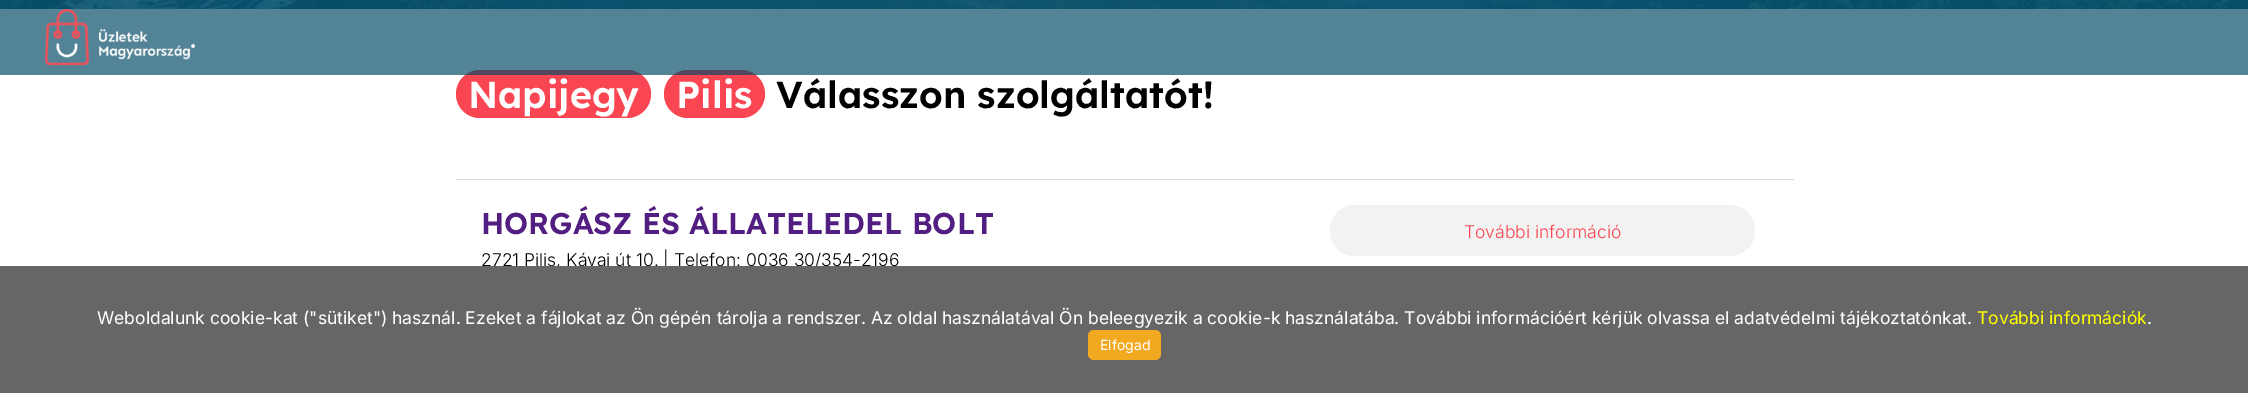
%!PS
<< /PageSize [2248 393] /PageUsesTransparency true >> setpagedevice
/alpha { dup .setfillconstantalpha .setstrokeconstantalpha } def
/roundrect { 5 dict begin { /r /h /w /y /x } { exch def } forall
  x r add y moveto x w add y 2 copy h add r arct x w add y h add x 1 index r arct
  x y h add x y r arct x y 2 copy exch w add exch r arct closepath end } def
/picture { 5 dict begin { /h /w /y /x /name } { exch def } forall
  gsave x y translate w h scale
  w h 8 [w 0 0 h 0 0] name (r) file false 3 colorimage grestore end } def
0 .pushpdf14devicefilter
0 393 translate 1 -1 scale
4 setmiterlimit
1 setgray
0 0 2248 393 rectfill
(img1.rgb) 0 0 2248 9 picture
0.98 0.275 0.322 setrgbcolor
456 70 195 48 24 roundrect fill
664 70 101 48 24 roundrect fill
0.68 alpha
0.008 0.286 0.392 setrgbcolor
0 0 2248 75 rectfill
1 alpha
(img2.rgb) 45 9 150 57 picture
/Lexend-SemiBold [37.5 0 0 -37.5 0 0] selectfont
1 setgray
468 108 moveto (Napijegy) show
676 108 moveto (Pilis) show
0 setgray
776 108 moveto (Válasszon szolgáltatót!) show
0.851 setgray
456 179 1338 1 rectfill
/Lexend-SemiBold [30 0 0 -30 0 0] selectfont
0.322 0.118 0.506 setrgbcolor
481 234 moveto (HORGÁSZ ÉS ÁLLATELEDEL BOLT) show
/Inter-Light [17.5 0 0 -17.5 0 0] selectfont
0 setgray
481 266 moveto (2721 Pilis, Kávai út 10. | Telefon: 0036 30/354-2196) show
0.949 setgray
1330 205 425 51 25 roundrect fill
0.98 0.275 0.322 setrgbcolor
1464 238 moveto (További információ) show
0.4 setgray
0 266 2248 127 rectfill
/Inter-Regular [17.5 0 0 -17.5 0 0] selectfont
1 setgray
97 324 moveto (Weboldalunk cookie-kat \("sütiket"\) használ. Ezeket a fájlokat az Ön gépén tárolja a rendszer. Az oldal használatával Ön beleegyezik a cookie-k használatába. További információért kérjük olvassa el adatvédelmi tájékoztatónkat.) show
1 1 0 setrgbcolor
1977 324 moveto (További információk) show
1 setgray
2147 324 moveto (.) show
0.949 0.663 0.125 setrgbcolor
1088 330 73 30 6 roundrect fill
/Inter-Regular [14 0 0 -14 0 0] selectfont
1 setgray
1100 350 moveto (Elfogad) show
.poppdf14devicefilter showpage
